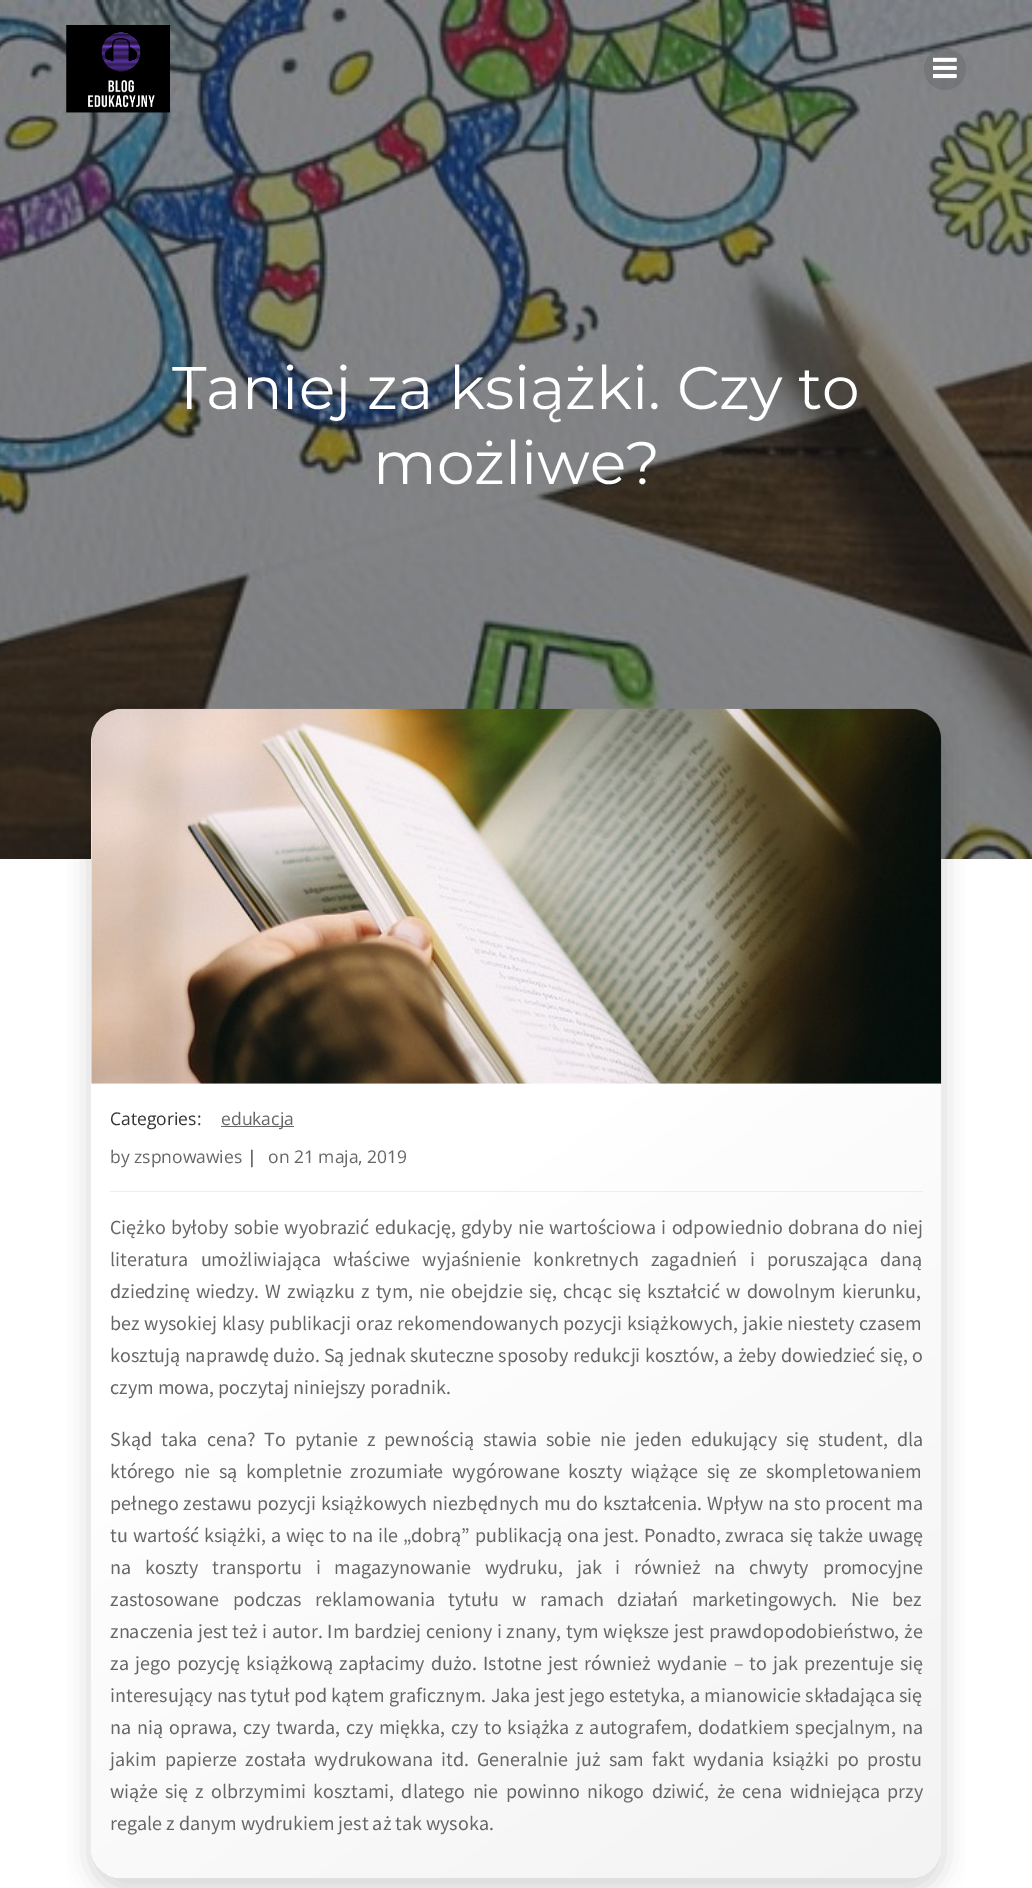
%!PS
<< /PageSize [1032 1888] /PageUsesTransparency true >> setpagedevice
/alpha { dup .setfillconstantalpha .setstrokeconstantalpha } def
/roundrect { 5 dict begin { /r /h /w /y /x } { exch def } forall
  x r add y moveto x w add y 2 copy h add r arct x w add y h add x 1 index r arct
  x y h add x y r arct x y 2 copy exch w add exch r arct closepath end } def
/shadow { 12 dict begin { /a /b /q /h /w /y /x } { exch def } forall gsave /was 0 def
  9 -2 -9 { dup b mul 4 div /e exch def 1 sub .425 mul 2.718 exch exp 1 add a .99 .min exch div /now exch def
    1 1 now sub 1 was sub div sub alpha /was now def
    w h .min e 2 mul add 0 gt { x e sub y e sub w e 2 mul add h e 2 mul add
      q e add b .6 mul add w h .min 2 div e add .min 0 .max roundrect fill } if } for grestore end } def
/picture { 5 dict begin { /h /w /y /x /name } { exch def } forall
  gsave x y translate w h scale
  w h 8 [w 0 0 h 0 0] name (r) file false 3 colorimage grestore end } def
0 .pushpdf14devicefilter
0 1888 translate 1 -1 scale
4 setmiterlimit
1 setgray
0 0 1032 1888 rectfill
(img3.rgb) 0 0 1032 859 picture
(img1.rgb) 66 25 104 88 picture
0.1 alpha
0 setgray
newpath 945 69 21 0 360 arc closepath fill
1 alpha
(img2.rgb) 933 57 24 22 picture
/Montserrat-Regular [60 0 0 -60 0 0] selectfont
1 setgray
172 409 moveto (Taniej za książki. Czy to) show
373 484 moveto (możliwe?) show
gsave
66 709 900 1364 rectclip
0 setgray
89 719 855 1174 36 12.5 0.15 shadow
grestore
gsave newpath 125 709 moveto 907 709 lineto 926 709 941 724 941 743 curveto 941 1847 lineto 941 1864 927 1878 910 1878 curveto 122 1878 lineto 105 1878 91 1864 91 1847 curveto 91 743 lineto 91 724 106 709 125 709 curveto closepath clip newpath
<< /ShadingType 2 /ColorSpace /DeviceRGB /Coords [102 701 931 1885] /Extend [true true] /Function << /FunctionType 3 /Domain [0 1] /Functions [<< /FunctionType 2 /Domain [0 1] /C0 [1 1 1] /C1 [1 1 1] /N 1 >> << /FunctionType 2 /Domain [0 1] /C0 [1 1 1] /C1 [0.953 0.953 0.953] /N 1 >>] /Bounds [0.42] /Encode [0 1 0 1] >> >> shfill grestore
(img4.rgb) 91 708 851 376 picture
0.933 setgray
110 1191 813 1 rectfill
/OpenSans-Regular [17.5 0 0 -17.5 0 0] selectfont
0.2 setgray
110 1125 moveto (Categories:) show
0.4 setgray
221 1126 73 1 rectfill
221 1125 moveto (edukacja) show
110 1163 moveto (by zspnowawies) show
0.2 setgray
247 1163 moveto (|) show
0.4 setgray
268 1163 moveto (on 21 maja, 2019) show
/SourceSansPro-Regular [20 0 0 -20 0 0] selectfont
110 1234 moveto 1.5 0 32 (Ciężko byłoby sobie wyobrazić edukację, gdyby nie wartościowa i odpowiednio dobrana do niej) widthshow
110 1266 moveto 8.25 0 32 (literatura umożliwiająca właściwe wyjaśnienie konkretnych zagadnień i poruszająca daną) widthshow
110 1298 moveto 2.25 0 32 (dziedzinę wiedzy. W związku z tym, nie obejdzie się, chcąc się kształcić w dowolnym kierunku,) widthshow
110 1330 moveto 0.75 0 32 (bez wysokiej klasy publikacji oraz rekomendowanych pozycji książkowych, jakie niestety czasem) widthshow
110 1362 moveto 0.25 0 32 (kosztują naprawdę dużo. Są jednak skuteczne sposoby redukcji kosztów, a żeby dowiedzieć się, o) widthshow
110 1394 moveto (czym mowa, poczytaj niniejszy poradnik.) show
110 1446 moveto 5 0 32 (Skąd taka cena? To pytanie z pewnością stawia) widthshow
546 1446 moveto 5 0 32 (sobie nie jeden edukujący się student, dla) widthshow
110 1478 moveto 4.75 0 32 (którego nie są kompletnie zrozumiałe wygórowane koszty wiążące się ze skompletowaniem) widthshow
110 1510 moveto 1 0 32 (pełnego zestawu pozycji książkowych niezbędnych mu do kształcenia. Wpływ na sto procent ma) widthshow
110 1542 moveto 1 0 32 (tu wartość książki, a więc to na ile „dobrą” publikacją ona jest. Ponadto, zwraca się także uwagę) widthshow
110 1574 moveto 9.75 0 32 (na koszty transportu i magazynowanie wydruku, jak i również na chwyty promocyjne) widthshow
110 1606 moveto 9.5 0 32 (zastosowane podczas reklamowania tytułu w ramach działań marketingowych. Nie bez) widthshow
110 1638 moveto 0.75 0 32 (znaczenia jest też i autor. Im bardziej ceniony i znany, tym większe jest) widthshow
709 1638 moveto 1 0 32 (prawdopodobieństwo, że) widthshow
110 1670 moveto 2.1 0 32 (za jego pozycję książkową zapłacimy dużo. Istotne jest również wydanie – to jak prezentuje się) widthshow
110 1702 moveto 0.4 0 32 (interesujący nas tytuł pod kątem graficznym. Jaka jest jego estetyka, a mianowicie składająca się) widthshow
110 1734 moveto 1.9 0 32 (na nią oprawa, czy twarda, czy miękka, czy to książka z autografem, dodatkiem specjalnym, na) widthshow
110 1766 moveto 4.25 0 32 (jakim papierze została wydrukowana itd. Generalnie już sam fakt wydania książki po prostu) widthshow
110 1798 moveto 3.25 0 32 (wiąże się z olbrzymimi kosztami, dlatego nie powinno nikogo dziwić, że cena widniejąca przy) widthshow
110 1830 moveto (regale z danym wydrukiem jest aż tak wysoka.) show
.poppdf14devicefilter showpage
